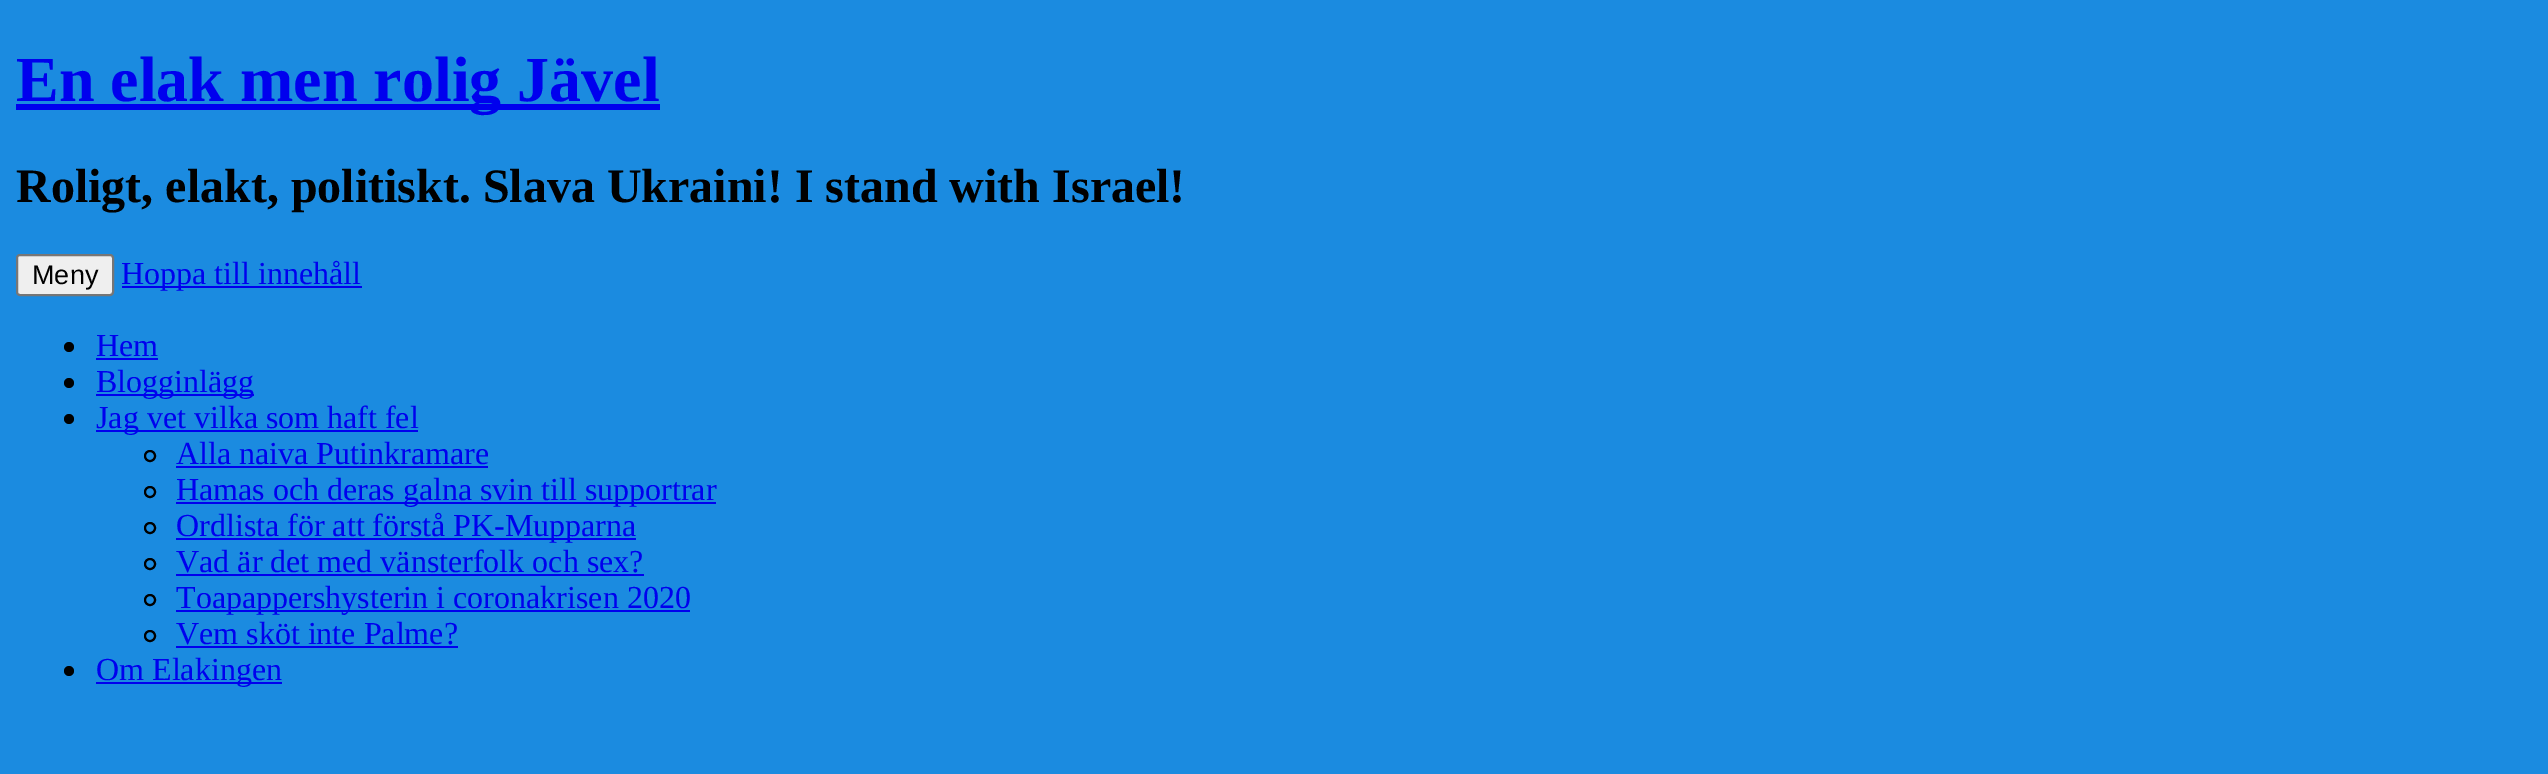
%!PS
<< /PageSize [2548 774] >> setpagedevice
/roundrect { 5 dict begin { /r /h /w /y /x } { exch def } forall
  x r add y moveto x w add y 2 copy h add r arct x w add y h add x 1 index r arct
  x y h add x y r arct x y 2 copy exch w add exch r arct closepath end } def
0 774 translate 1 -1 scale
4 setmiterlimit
0.106 0.545 0.878 setrgbcolor
0 0 2548 774 rectfill
0 0 0.933 setrgbcolor
16 104 644 6 rectfill
/LiberationSerif-Bold [64 0 0 -64 0 0] selectfont
16 101 moveto (En elak men rolig Jävel) show
/LiberationSerif-Bold [48 0 0 -48 0 0] selectfont
0 setgray
16 202 moveto (Roligt, elakt, politiskt. Slava Ukraini! I stand with Israel!) show
0.937 setgray
17 255 96 40 3 roundrect gsave fill grestore
0.463 setgray
2 setlinewidth
stroke
/LiberationSans-Regular [27 0 0 -27 0 0] selectfont
0 setgray
32 284 moveto (Meny) show
0 0 0.933 setrgbcolor
122 286 240 2 rectfill
/LiberationSerif-Regular [32 0 0 -32 0 0] selectfont
121 284 moveto (Hoppa till innehåll) show
0 setgray
newpath 69 347 5 0 360 arc closepath fill
0 0 0.933 setrgbcolor
96 356 moveto (Hem) show
96 358 62 2 rectfill
0 setgray
newpath 69 383 5 0 360 arc closepath fill
0 0 0.933 setrgbcolor
96 394 158 2 rectfill
96 392 moveto (Blogginlägg) show
0 setgray
newpath 69 419 5 0 360 arc closepath fill
0 0 0.933 setrgbcolor
96 430 322 2 rectfill
96 428 moveto (Jag vet vilka som haft fel) show
0 setgray
newpath 150 456 5 0 360 arc closepath stroke
0 0 0.933 setrgbcolor
176 464 moveto (Alla naiva Putinkramare) show
176 466 312 2 rectfill
0 setgray
newpath 150 492 5 0 360 arc closepath stroke
0 0 0.933 setrgbcolor
176 502 540 2 rectfill
176 500 moveto (Hamas och deras galna svin till supportrar) show
0 setgray
newpath 150 528 5 0 360 arc closepath stroke
0 0 0.933 setrgbcolor
176 538 460 2 rectfill
176 536 moveto (Ordlista för att förstå PK-Mupparna) show
0 setgray
newpath 150 564 5 0 360 arc closepath stroke
0 0 0.933 setrgbcolor
176 572 moveto (Vad är det med vänsterfolk och sex?) show
176 574 468 2 rectfill
0 setgray
newpath 150 600 5 0 360 arc closepath stroke
0 0 0.933 setrgbcolor
176 610 514 2 rectfill
176 608 moveto (Toapappershysterin i coronakrisen 2020) show
0 setgray
newpath 150 636 5 0 360 arc closepath stroke
0 0 0.933 setrgbcolor
176 644 moveto (Vem sköt inte Palme?) show
176 646 282 2 rectfill
0 setgray
newpath 69 671 5 0 360 arc closepath fill
0 0 0.933 setrgbcolor
96 682 186 2 rectfill
96 680 moveto (Om Elakingen) show
showpage
